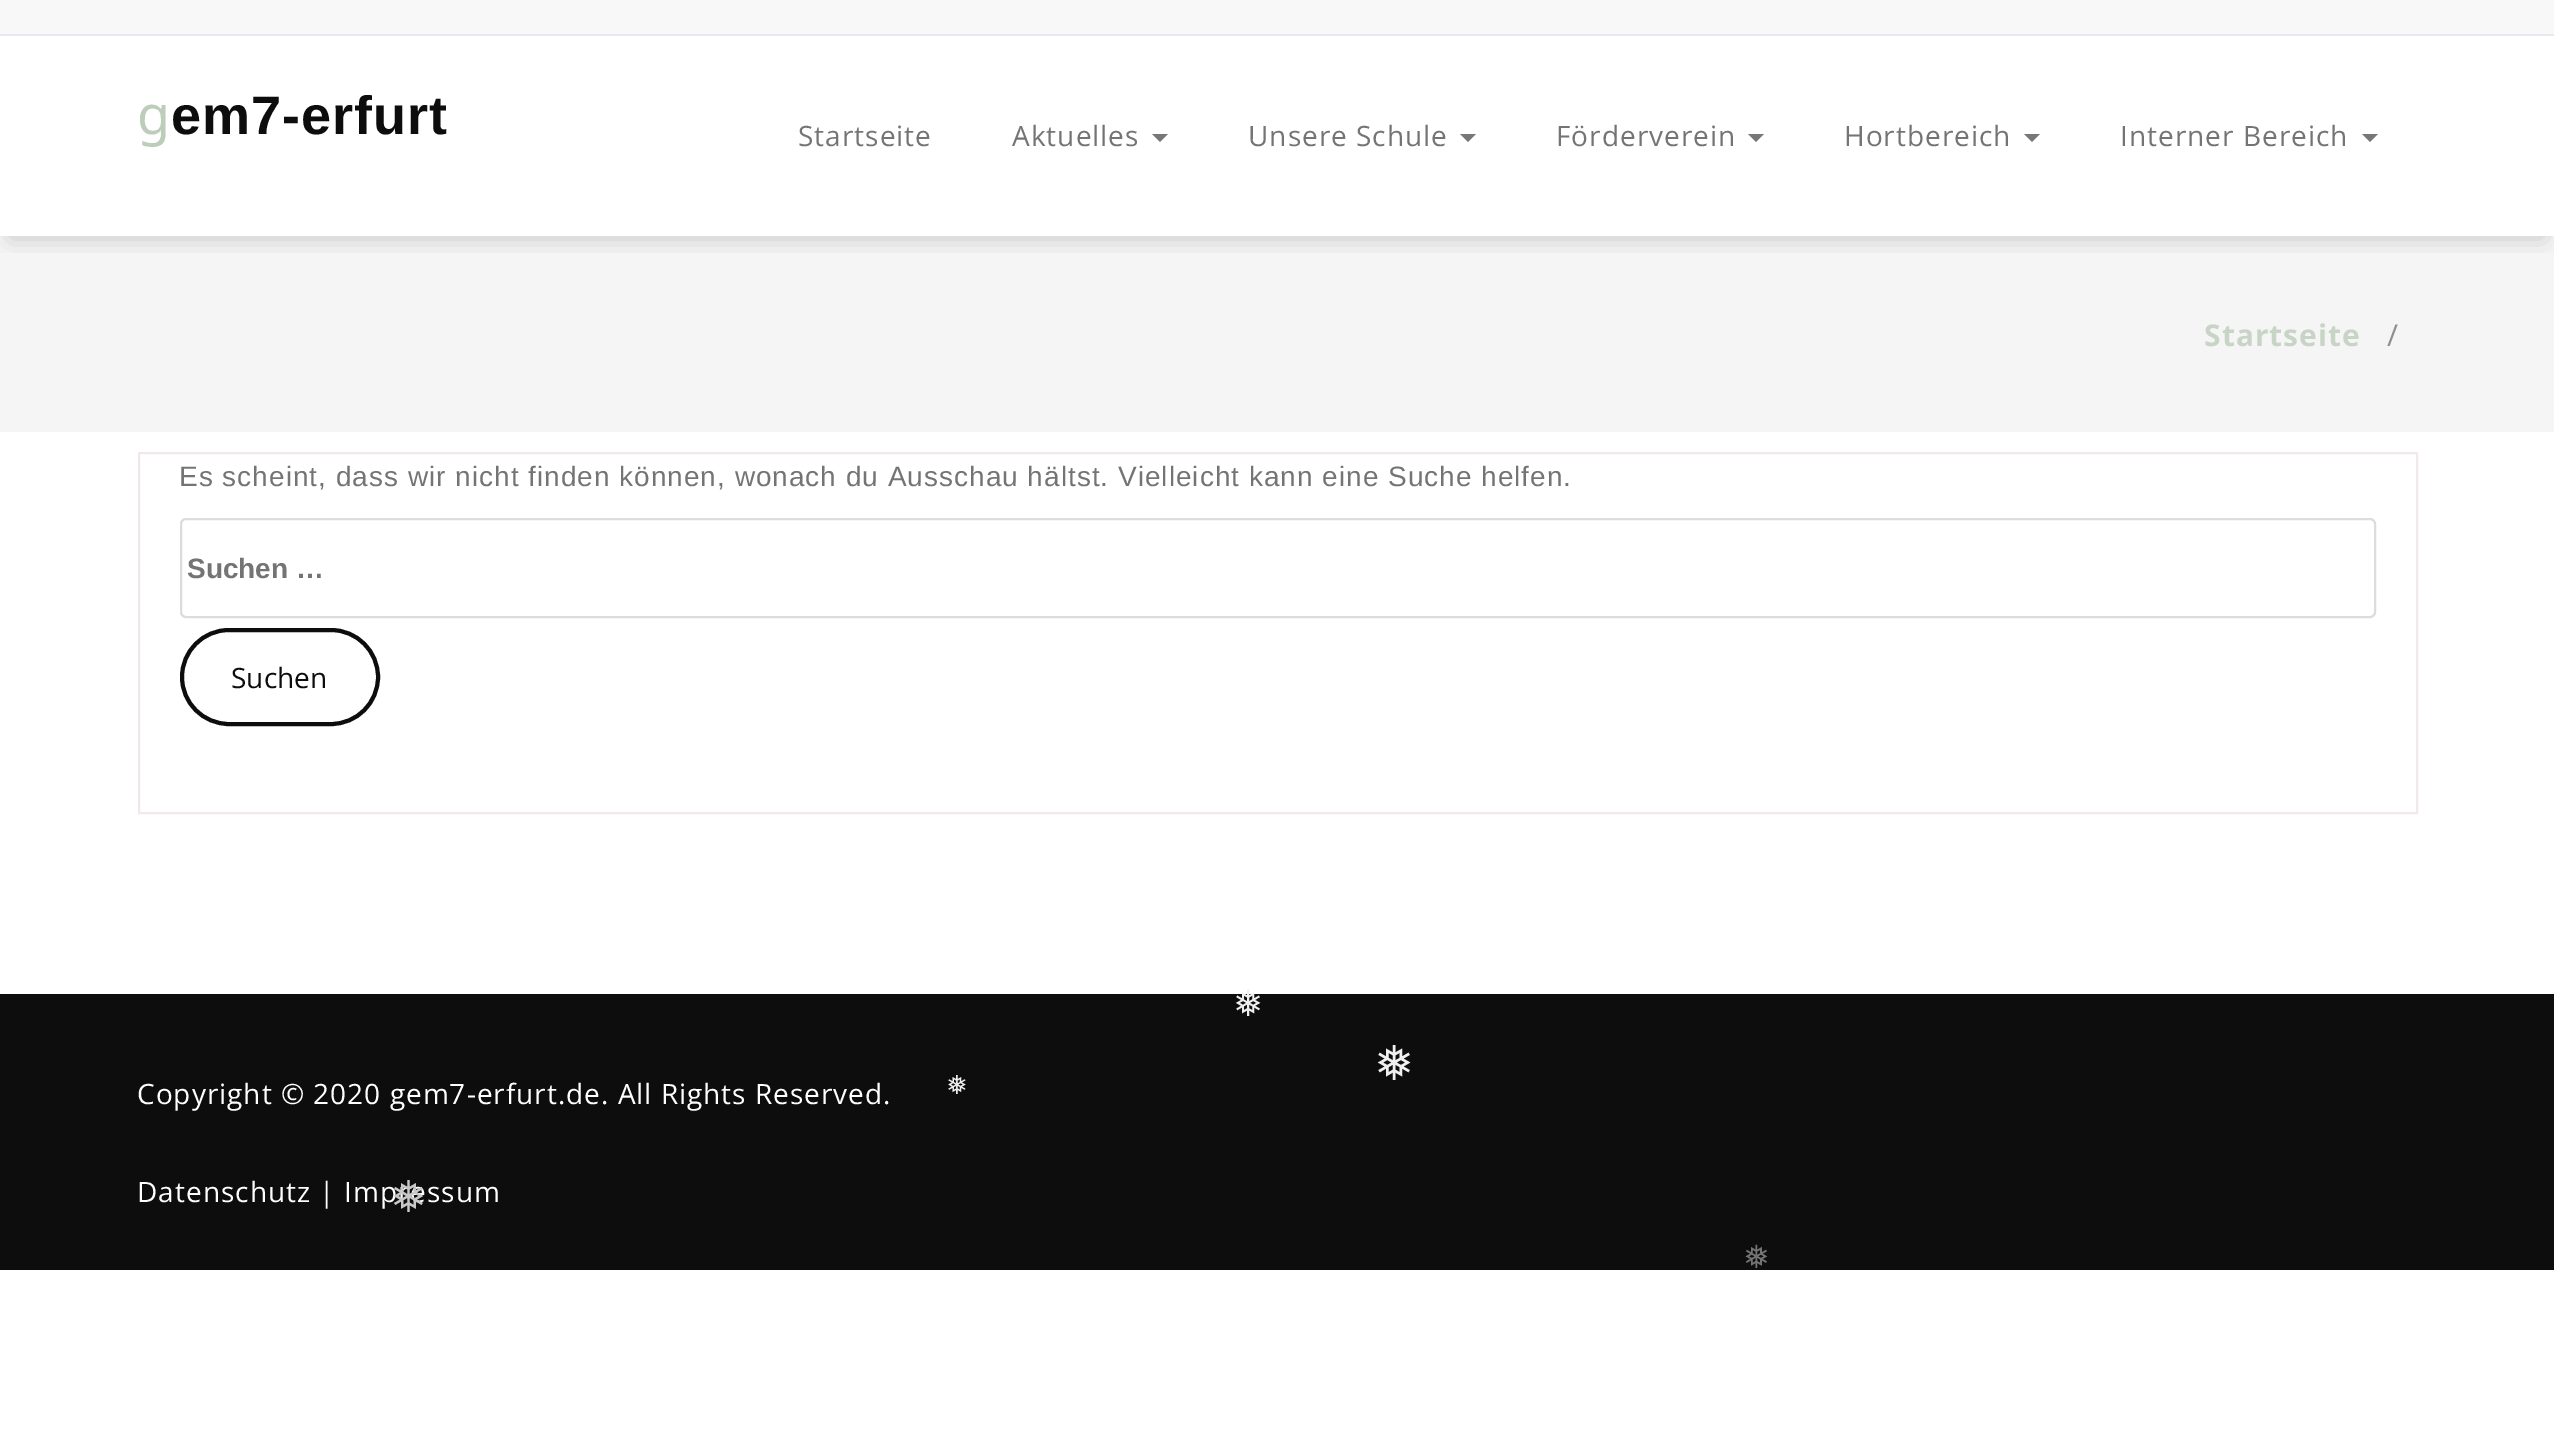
%!PS
<< /PageSize [2554 1430] /PageUsesTransparency true >> setpagedevice
/alpha { dup .setfillconstantalpha .setstrokeconstantalpha } def
/roundrect { 5 dict begin { /r /h /w /y /x } { exch def } forall
  x r add y moveto x w add y 2 copy h add r arct x w add y h add x 1 index r arct
  x y h add x y r arct x y 2 copy exch w add exch r arct closepath end } def
/shadow { 12 dict begin { /a /b /q /h /w /y /x } { exch def } forall gsave /was 0 def
  9 -2 -9 { dup b mul 4 div /e exch def 1 sub .425 mul 2.718 exch exp 1 add a .99 .min exch div /now exch def
    1 1 now sub 1 was sub div sub alpha /was now def
    w h .min e 2 mul add 0 gt { x e sub y e sub w e 2 mul add h e 2 mul add
      q e add b .6 mul add w h .min 2 div e add .min 0 .max roundrect fill } if } for grestore end } def
0 .pushpdf14devicefilter
0 1430 translate 1 -1 scale
4 setmiterlimit
1 setgray
0 0 2554 1430 rectfill
0.973 setgray
0 0 2554 34 rectfill
0.902 0.914 0.929 setrgbcolor
0 34 2554 2 rectfill
0.961 setgray
0 236 2554 196 rectfill
gsave
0 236 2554 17 rectclip
0 setgray
10 58 2534 180 0 12 0.18 shadow
grestore
/NotoSans-Regular [54 0 0 -54 0 0] selectfont
0.737 0.804 0.729 setrgbcolor
137 134 moveto 1 0 (g) ashow
/LiberationSans-Bold [54 0 0 -54 0 0] selectfont
0.051 setgray
171 134 moveto 1 0 (em7-erfurt) ashow
/OpenSans-Regular [28 0 0 -28 0 0] selectfont
0.455 setgray
798 146 moveto 1 0 (Startseite) ashow
1012 146 moveto 1 0 (Aktuelles) ashow
0.467 setgray
newpath 1152 134 moveto 1168 134 lineto 1160 142 lineto closepath fill
0.455 setgray
1248 146 moveto 1 0 (Unsere Schule) ashow
0.467 setgray
newpath 1460 134 moveto 1476 134 lineto 1468 142 lineto closepath fill
0.455 setgray
1556 146 moveto 1 0 (Förderverein) ashow
0.467 setgray
newpath 1748 134 moveto 1764 134 lineto 1756 142 lineto closepath fill
0.455 setgray
1844 146 moveto 1 0 (Hortbereich) ashow
0.467 setgray
newpath 2024 134 moveto 2040 134 lineto 2032 142 lineto closepath fill
0.455 setgray
2120 146 moveto 1 0 (Interner Bereich) ashow
0.467 setgray
newpath 2362 134 moveto 2378 134 lineto 2370 142 lineto closepath fill
/OpenSans-Bold [30 0 0 -30 0 0] selectfont
0.784 0.835 0.776 setrgbcolor
2204 346 moveto 1 0 (Startseite) ashow
/OpenSans-Regular [30 0 0 -30 0 0] selectfont
0.561 setgray
2387 346 moveto 1 0 (/) ashow
0.937 0.914 0.914 setrgbcolor
2 setlinewidth
139 453 2278 360 rectstroke
/LiberationSans-Regular [28 0 0 -28 0 0] selectfont
0.455 setgray
179 486 moveto 1 0 (Es scheint, dass wir nicht finden können, wonach du Ausschau hältst. Vielleicht kann eine Suche helfen.) ashow
0.863 setgray
181 519 2194 98 5 roundrect stroke
/LiberationSans-Bold [28 0 0 -28 0 0] selectfont
0.455 setgray
187 578 moveto (Suchen …) show
0.051 setgray
4 setlinewidth
182 630 196 94 47 roundrect stroke
/OpenSans-Regular [28 0 0 -28 0 0] selectfont
231 688 moveto (Suchen) show
0 994 2554 276 rectfill
1 setgray
137 1104 moveto 1 0 (Copyright © 2020 gem7-erfurt.de. All Rights Reserved.) ashow
137 1202 moveto 1 0 (Datenschutz | Impressum) ashow
/DejaVuSans-Regular [36 0 0 -36 0 0] selectfont
0.937 setgray
1233 1016 moveto 1 0 (❅) ashow
/DejaVuSans-Regular [48 0 0 -48 0 0] selectfont
1374 1080 moveto 1 0 (❅) ashow
/DejaVuSans-Regular [26 0 0 -26 0 0] selectfont
946 1094 moveto 1 0 (❅) ashow
/DejaVuSans-Regular [44 0 0 -44 0 0] selectfont
0.784 setgray
390 1212 moveto 1 0 (❅) ashow
/DejaVuSans-Regular [32 0 0 -32 0 0] selectfont
0.455 setgray
1743 1268 moveto 1 0 (❅) ashow
.poppdf14devicefilter showpage
